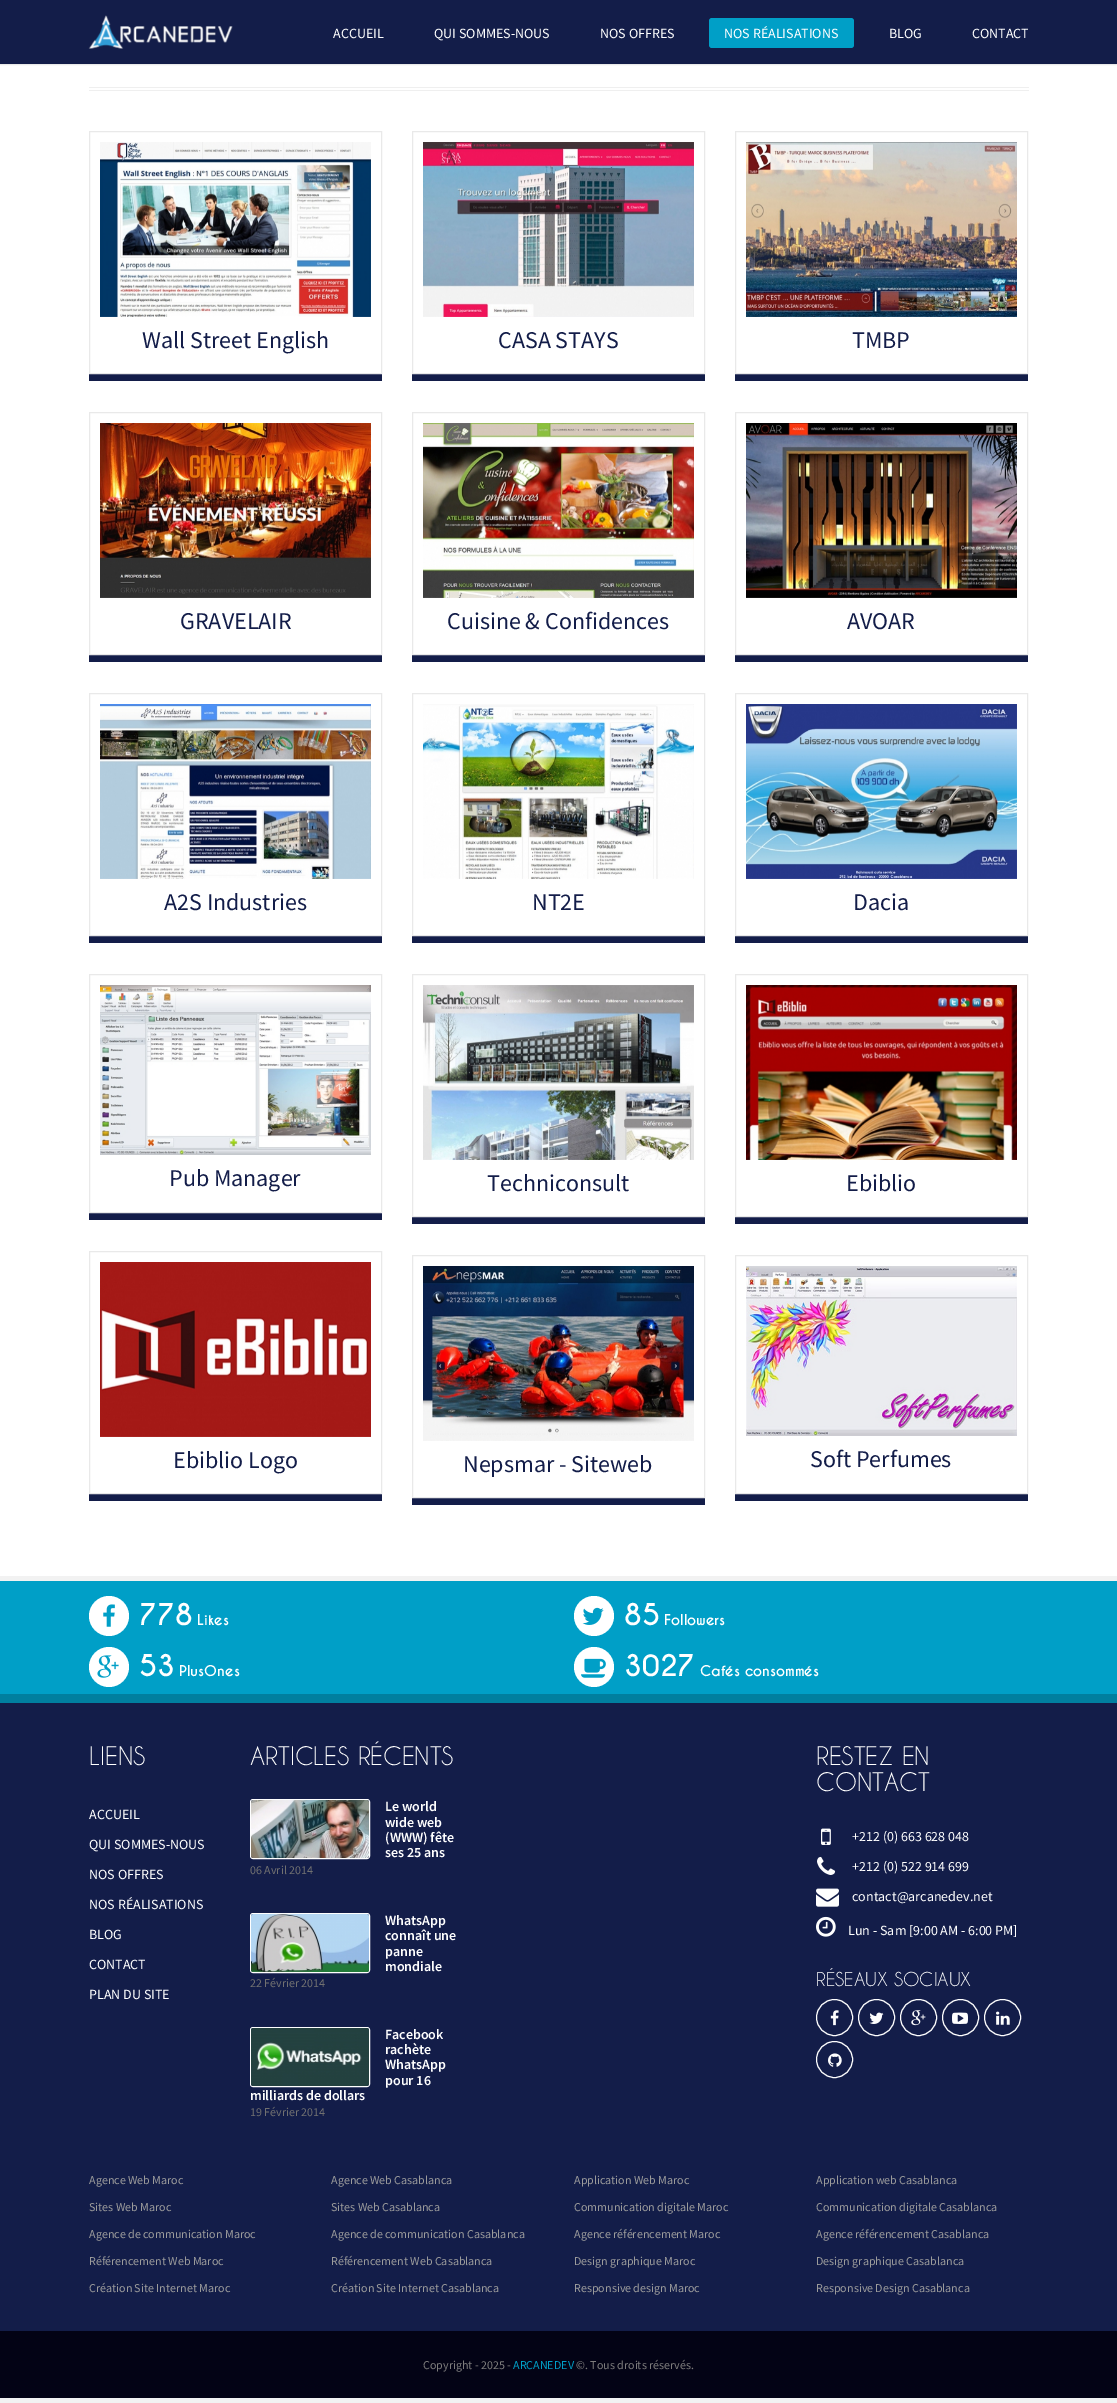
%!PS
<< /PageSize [1117 2403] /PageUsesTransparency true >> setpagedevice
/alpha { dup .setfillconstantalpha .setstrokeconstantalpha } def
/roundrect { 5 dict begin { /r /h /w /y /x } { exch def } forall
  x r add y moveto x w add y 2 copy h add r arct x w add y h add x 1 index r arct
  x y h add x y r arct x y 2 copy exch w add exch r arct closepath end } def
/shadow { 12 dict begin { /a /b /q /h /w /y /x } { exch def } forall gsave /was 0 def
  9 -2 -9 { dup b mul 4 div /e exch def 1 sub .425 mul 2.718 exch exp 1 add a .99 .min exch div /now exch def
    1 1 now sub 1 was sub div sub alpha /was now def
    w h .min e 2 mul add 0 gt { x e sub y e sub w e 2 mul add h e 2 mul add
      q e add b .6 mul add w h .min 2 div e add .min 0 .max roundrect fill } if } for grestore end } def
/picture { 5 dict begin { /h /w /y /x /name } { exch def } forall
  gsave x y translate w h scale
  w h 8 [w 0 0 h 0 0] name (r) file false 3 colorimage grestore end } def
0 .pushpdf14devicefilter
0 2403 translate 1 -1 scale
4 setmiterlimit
0.012 0.012 0.082 setrgbcolor
0 0 1117 2403 rectfill
1 setgray
0 64 1117 1512 rectfill
0 setgray
0 1 1117 64 0 0.5 0.1 shadow
0.075 0.114 0.286 setrgbcolor
0 0 1117 64 rectfill
(img1.rgb) 88 15 145 34 picture
/SourceSansPro-Regular [14 0 0 -14 0 0] selectfont
1 setgray
333 38 moveto (ACCUEIL) show
434 38 moveto (QUI SOMMES-NOUS) show
600 38 moveto (NOS OFFRES) show
0 0.624 0.78 setrgbcolor
709 18 145 30 3 roundrect fill
1 setgray
724 38 moveto (NOS RÉALISATIONS) show
889 38 moveto (BLOG) show
972 38 moveto (CONTACT) show
0.949 setgray
0 1576 1117 5 rectfill
0.937 setgray
89 87 940 1 rectfill
89 90 940 1 rectfill
0.075 0.114 0.286 setrgbcolor
89 374 293 7 rectfill
0.914 setgray
89.5 131.5 292 242 rectstroke
(img2.rgb) 100 142 271 175 picture
/SourceSansPro-Regular [24 0 0 -24 0 0] selectfont
0.075 0.114 0.286 setrgbcolor
142 348 moveto (Wall Street English) show
412 374 293 7 rectfill
0.914 setgray
412.5 131.5 292 242 rectstroke
(img3.rgb) 423 142 271 175 picture
0.075 0.114 0.286 setrgbcolor
498 348 moveto (CASA STAYS) show
735 374 293 7 rectfill
0.914 setgray
735.5 131.5 292 242 rectstroke
(img4.rgb) 746 142 271 175 picture
0.075 0.114 0.286 setrgbcolor
852 348 moveto (TMBP) show
89 655 293 7 rectfill
0.914 setgray
89.5 412.5 292 242 rectstroke
(img5.rgb) 100 423 271 175 picture
0.075 0.114 0.286 setrgbcolor
180 629 moveto (GRAVELAIR) show
412 655 293 7 rectfill
0.914 setgray
412.5 412.5 292 242 rectstroke
(img6.rgb) 423 423 271 175 picture
0.075 0.114 0.286 setrgbcolor
447 629 moveto (Cuisine & Confidences) show
735 655 293 7 rectfill
0.914 setgray
735.5 412.5 292 242 rectstroke
(img7.rgb) 746 423 271 175 picture
0.075 0.114 0.286 setrgbcolor
847 629 moveto (AVOAR) show
89 936 293 7 rectfill
0.914 setgray
89.5 693.5 292 242 rectstroke
(img8.rgb) 100 704 271 175 picture
0.075 0.114 0.286 setrgbcolor
164 910 moveto (A2S Industries) show
412 936 293 7 rectfill
0.914 setgray
412.5 693.5 292 242 rectstroke
(img9.rgb) 423 704 271 175 picture
0.075 0.114 0.286 setrgbcolor
532 910 moveto (NT2E) show
735 936 293 7 rectfill
0.914 setgray
735.5 693.5 292 242 rectstroke
(img10.rgb) 746 704 271 175 picture
0.075 0.114 0.286 setrgbcolor
853 910 moveto (Dacia) show
89 1213 293 7 rectfill
0.914 setgray
89.5 974.5 292 238 rectstroke
(img11.rgb) 100 985 271 170 picture
0.075 0.114 0.286 setrgbcolor
169 1186 moveto (Pub Manager) show
412 1217 293 7 rectfill
0.914 setgray
412.5 974.5 292 242 rectstroke
(img12.rgb) 423 985 271 175 picture
0.075 0.114 0.286 setrgbcolor
487 1191 moveto (Techniconsult) show
735 1217 293 7 rectfill
0.914 setgray
735.5 974.5 292 242 rectstroke
(img13.rgb) 746 985 271 175 picture
0.075 0.114 0.286 setrgbcolor
846 1191 moveto (Ebiblio) show
89 1494 293 7 rectfill
0.914 setgray
89.5 1251.5 292 242 rectstroke
(img14.rgb) 100 1262 271 175 picture
0.075 0.114 0.286 setrgbcolor
173 1468 moveto (Ebiblio Logo) show
412 1498 293 7 rectfill
0.914 setgray
412.5 1255.5 292 242 rectstroke
(img15.rgb) 423 1266 271 175 picture
0.075 0.114 0.286 setrgbcolor
463 1472 moveto (Nepsmar - Siteweb) show
735 1494 293 7 rectfill
0.914 setgray
735.5 1255.5 292 238 rectstroke
(img16.rgb) 746 1266 271 170 picture
0.075 0.114 0.286 setrgbcolor
810 1467 moveto (Soft Perfumes) show
0 0.624 0.78 setrgbcolor
0 1581 1117 113 rectfill
0 0.498 0.624 setrgbcolor
0 1694 1117 9 rectfill
1 setgray
newpath 109 1616 20 0 360 arc closepath fill
(img17.rgb) 103 1604 12 23 picture
/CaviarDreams-Bold [28 0 0 -28 0 0] selectfont
139 1625 moveto (778) show
/CaviarDreams-Bold [14 0 0 -14 0 0] selectfont
197 1625 moveto (Likes) show
newpath 594 1616 20 0 360 arc closepath fill
(img18.rgb) 582 1607 22 18 picture
/CaviarDreams-Bold [28 0 0 -28 0 0] selectfont
624 1625 moveto (85) show
/CaviarDreams-Bold [14 0 0 -14 0 0] selectfont
664 1625 moveto (Followers) show
newpath 109 1667 20 0 360 arc closepath fill
(img19.rgb) 97 1655 22 23 picture
/CaviarDreams-Bold [28 0 0 -28 0 0] selectfont
139 1676 moveto (53) show
/CaviarDreams-Bold [14 0 0 -14 0 0] selectfont
179 1676 moveto (PlusOnes) show
newpath 594 1667 20 0 360 arc closepath fill
(img20.rgb) 581 1658 25 20 picture
/CaviarDreams-Bold [28 0 0 -28 0 0] selectfont
624 1676 moveto (3027) show
/CaviarDreams-Bold [14 0 0 -14 0 0] selectfont
700 1676 moveto (Cafés consommés) show
0.075 0.114 0.286 setrgbcolor
0 1703 1117 628 rectfill
/CaviarDreams-Regular [24 0 0 -24 0 0] selectfont
1 setgray
89 1765 moveto (LIENS) show
/SourceSansPro-Regular [14 0 0 -14 0 0] selectfont
89 1819 moveto (ACCUEIL) show
89 1849 moveto (QUI SOMMES-NOUS) show
89 1879 moveto (NOS OFFRES) show
89 1909 moveto (NOS RÉALISATIONS) show
89 1939 moveto (BLOG) show
89 1969 moveto (CONTACT) show
89 1999 moveto (PLAN DU SITE) show
/CaviarDreams-Regular [24 0 0 -24 0 0] selectfont
250 1765 moveto (ARTICLES RÉCENTS) show
250.5 1799.5 119 59 2.5 roundrect stroke
(img21.rgb) 251 1800 118 58 picture
/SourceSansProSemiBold-SemiBold [14 0 0 -14 0 0] selectfont
385 1811 moveto (Le world) show
385 1827 moveto (wide web) show
385 1842 moveto (\(WWW\) fête) show
385 1857 moveto (ses 25 ans) show
/SourceSansPro-Regular [12 0 0 -12 0 0] selectfont
0.439 setgray
250 1874 moveto (06 Avril 2014) show
1 setgray
250.5 1913.5 119 59 2.5 roundrect stroke
(img22.rgb) 251 1914 118 58 picture
/SourceSansProSemiBold-SemiBold [14 0 0 -14 0 0] selectfont
385 1925 moveto (WhatsApp) show
385 1940 moveto (connaît une) show
385 1956 moveto (panne) show
385 1971 moveto (mondiale) show
/SourceSansPro-Regular [12 0 0 -12 0 0] selectfont
0.439 setgray
250 1987 moveto (22 Février 2014) show
1 setgray
250.5 2027.5 119 59 2.5 roundrect stroke
(img23.rgb) 251 2028 118 58 picture
/SourceSansProSemiBold-SemiBold [14 0 0 -14 0 0] selectfont
385 2039 moveto (Facebook) show
385 2054 moveto (rachète) show
385 2069 moveto (WhatsApp) show
385 2085 moveto (pour 16) show
250 2100 moveto (milliards de dollars) show
/SourceSansPro-Regular [12 0 0 -12 0 0] selectfont
0.439 setgray
250 2116 moveto (19 Février 2014) show
/CaviarDreams-Regular [24 0 0 -24 0 0] selectfont
1 setgray
816 1765 moveto (RESTEZ EN) show
816 1791 moveto (CONTACT) show
(img24.rgb) 821 1828 10 17 picture
/SourceSansPro-Regular [14 0 0 -14 0 0] selectfont
852 1841 moveto (+212 \(0\) 663 628 048) show
(img25.rgb) 817 1856 19 19 picture
852 1871 moveto (+212 \(0\) 522 914 699) show
(img26.rgb) 816 1888 23 19 picture
852 1901 moveto (contact@arcanedev.net) show
(img27.rgb) 816 1916 20 21 picture
848 1935 moveto (Lun - Sam [9:00 AM - 6:00 PM]) show
/CaviarDreams-Regular [18 0 0 -18 0 0] selectfont
816 1986 moveto (RÉSEAUX SOCIAUX) show
0.996 setgray
newpath 834.5 2017.5 18 0 360 arc closepath stroke
(img28.rgb) 830 2010 9 16 picture
newpath 876.5 2017.5 18 0 360 arc closepath stroke
(img29.rgb) 869 2012 15 12 picture
newpath 918.5 2017.5 18 0 360 arc closepath stroke
(img30.rgb) 911 2010 15 16 picture
newpath 960.5 2017.5 18 0 360 arc closepath stroke
(img31.rgb) 952 2012 16 12 picture
newpath 1002.5 2017.5 18 0 360 arc closepath stroke
(img32.rgb) 996 2011 14 14 picture
newpath 834.5 2059.5 18 0 360 arc closepath stroke
(img33.rgb) 828 2053 14 14 picture
/SourceSansPro-Regular [12 0 0 -12 0 0] selectfont
0.608 setgray
89 2184 moveto (Agence Web Maroc) show
89 2211 moveto (Sites Web Maroc) show
89 2238 moveto (Agence de communication Maroc) show
89 2265 moveto (Référencement Web Maroc) show
89 2292 moveto (Création Site Internet Maroc) show
331 2184 moveto (Agence Web Casablanca) show
331 2211 moveto (Sites Web Casablanca) show
331 2238 moveto (Agence de communication Casablanca) show
331 2265 moveto (Référencement Web Casablanca) show
331 2292 moveto (Création Site Internet Casablanca) show
574 2184 moveto (Application Web Maroc) show
574 2211 moveto (Communication digitale Maroc) show
574 2238 moveto (Agence référencement Maroc) show
574 2265 moveto (Design graphique Maroc) show
574 2292 moveto (Responsive design Maroc) show
816 2184 moveto (Application web Casablanca) show
816 2211 moveto (Communication digitale Casablanca) show
816 2238 moveto (Agence référencement Casablanca) show
816 2265 moveto (Design graphique Casablanca) show
816 2292 moveto (Responsive Design Casablanca) show
0.949 setgray
0 2398 1117 5 rectfill
0.49 0.486 0.486 setrgbcolor
423 2369 moveto (Copyright - 2025 -) show
0 0.624 0.78 setrgbcolor
513 2369 moveto (ARCANEDEV) show
0.49 0.486 0.486 setrgbcolor
576 2369 moveto (©. Tous droits réservés.) show
.poppdf14devicefilter showpage
